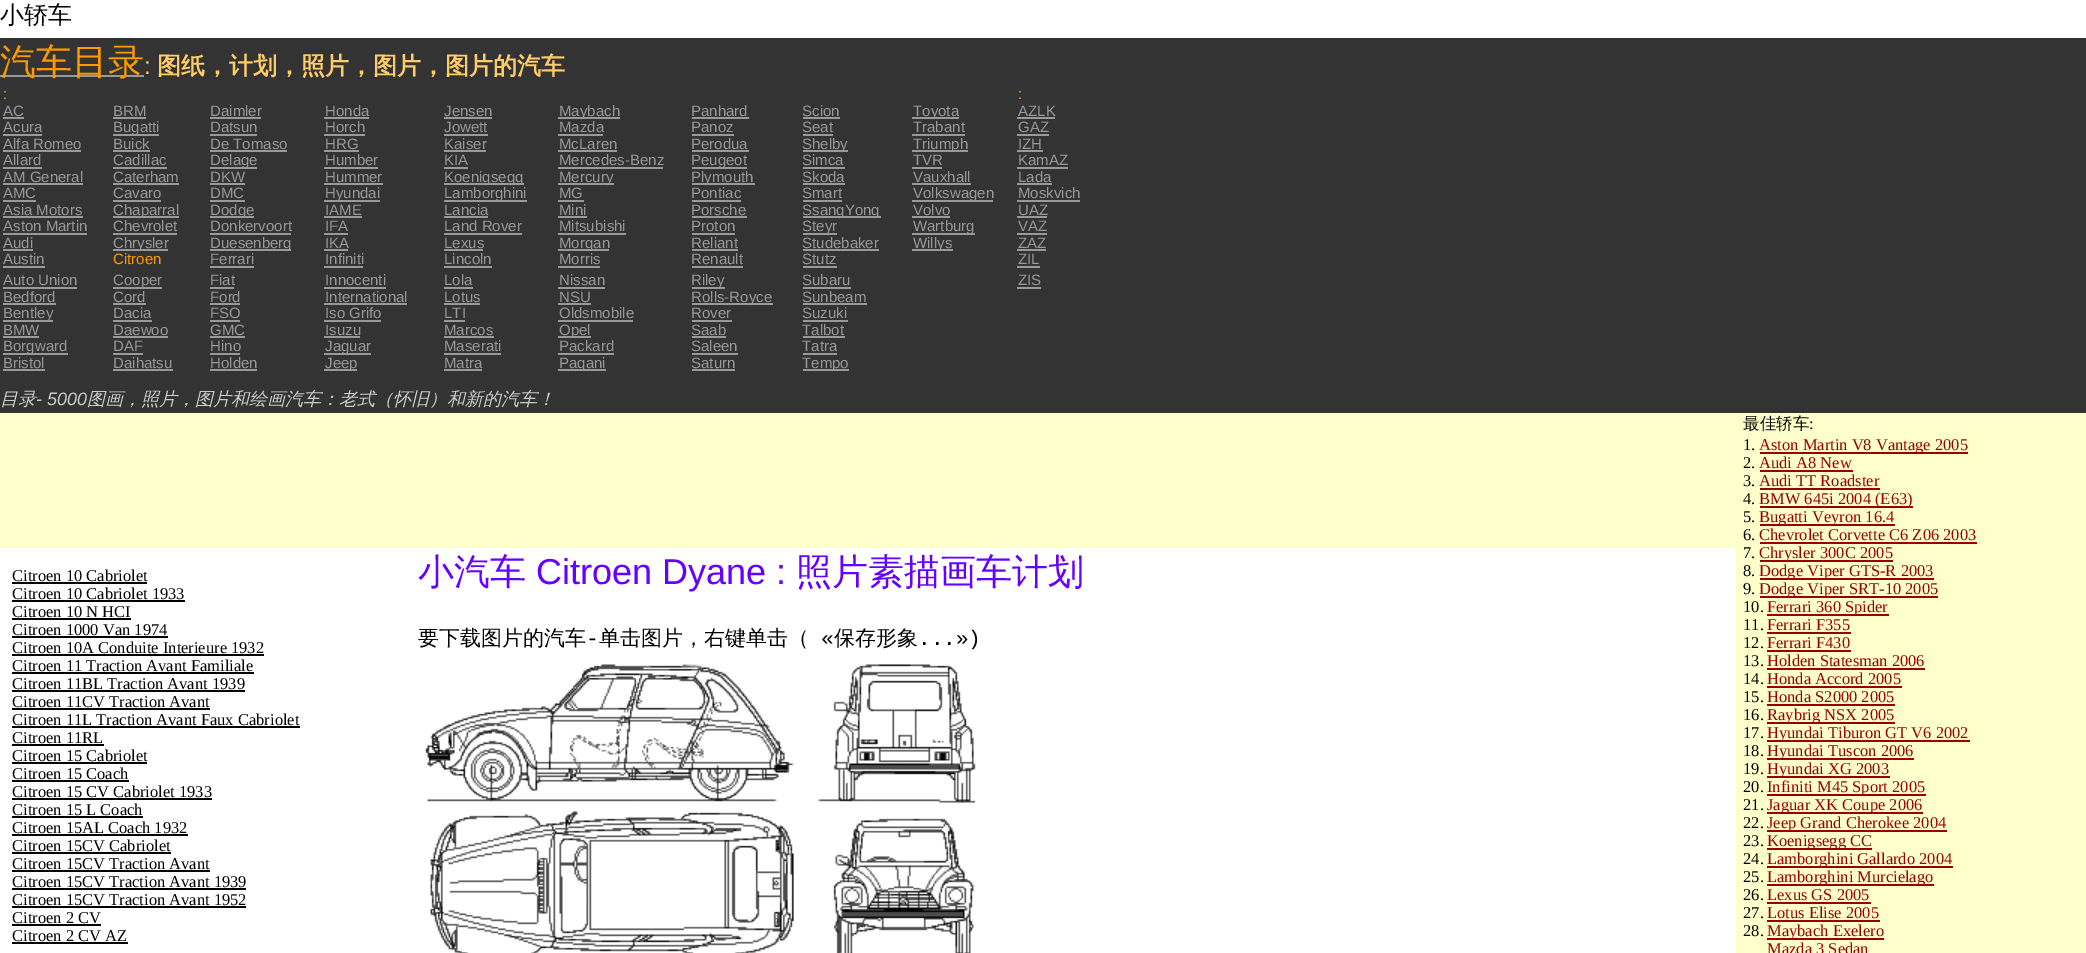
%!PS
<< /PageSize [2086 953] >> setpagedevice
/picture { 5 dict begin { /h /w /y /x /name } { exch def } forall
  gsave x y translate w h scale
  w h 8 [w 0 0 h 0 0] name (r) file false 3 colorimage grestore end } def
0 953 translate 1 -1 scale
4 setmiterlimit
1 setgray
0 0 2086 953 rectfill
/WenQuanYiZenHei-Medium [24 0 0 -24 0 0] selectfont
0 setgray
0 23 moveto (小轿车) show
0.2 setgray
0 38 2086 375 rectfill
0.6 setgray
0 75 144 2 rectfill
/WenQuanYiZenHei-Medium [36 0 0 -36 0 0] selectfont
1 0.6 0 setrgbcolor
0 74 moveto (汽车目录) show
/LiberationSans-Regular [24 0 0 -24 0 0] selectfont
1 0.8 0.4 setrgbcolor
144 74 moveto (:) show
/WenQuanYiZenHei-Bold [24 0 0 -24 0 0] selectfont
157 74 moveto (图纸，计划，照片，图片，图片的汽车) show
/LiberationSans-Regular [15 0 0 -15 0 0] selectfont
1 0.6 0 setrgbcolor
3 99 moveto (:) show
1018 99 moveto (:) show
0.6 setgray
3 116 moveto (AC) show
3 117 21 2 rectfill
113 116 moveto (BRM) show
113 117 33 2 rectfill
210 116 moveto (Daimler) show
210 117 51 2 rectfill
325 116 moveto (Honda) show
324 117 45 2 rectfill
444 116 moveto (Jensen) show
444 117 48 2 rectfill
558 117 62 2 rectfill
559 116 moveto (Maybach) show
691 116 moveto (Panhard) show
692 117 57 2 rectfill
802 116 moveto (Scion) show
803 117 37 2 rectfill
912 117 47 2 rectfill
913 116 moveto (Toyota) show
1018 116 moveto (AZLK) show
1017 117 38 2 rectfill
3 132 moveto (Acura) show
3 134 39 2 rectfill
113 134 46 2 rectfill
113 132 moveto (Bugatti) show
210 132 moveto (Datsun) show
210 134 47 2 rectfill
325 132 moveto (Horch) show
324 134 41 2 rectfill
444 132 moveto (Jowett) show
444 134 44 2 rectfill
559 132 moveto (Mazda) show
558 134 45 2 rectfill
691 132 moveto (Panoz) show
692 134 42 2 rectfill
802 132 moveto (Seat) show
803 134 30 2 rectfill
913 132 moveto (Trabant) show
912 134 53 2 rectfill
1018 132 moveto (GAZ) show
1017 134 32 2 rectfill
3 149 moveto (Alfa Romeo) show
3 150 78 2 rectfill
113 149 moveto (Buick) show
113 150 37 2 rectfill
210 149 moveto (De Tomaso) show
210 150 77 2 rectfill
325 149 moveto (HRG) show
324 150 35 2 rectfill
444 149 moveto (Kaiser) show
444 150 42 2 rectfill
559 149 moveto (McLaren) show
558 150 59 2 rectfill
691 149 moveto (Perodua) show
692 150 57 2 rectfill
803 150 45 2 rectfill
802 149 moveto (Shelby) show
912 150 56 2 rectfill
913 149 moveto (Triumph) show
1018 149 moveto (IZH) show
1017 150 26 2 rectfill
3 165 moveto (Allard) show
3 167 39 2 rectfill
113 165 moveto (Cadillac) show
113 167 54 2 rectfill
210 167 47 2 rectfill
210 165 moveto (Delage) show
325 165 moveto (Humber) show
324 167 54 2 rectfill
444 165 moveto (KIA) show
444 167 24 2 rectfill
559 165 moveto (Mercedes-Benz) show
558 167 105 2 rectfill
692 167 55 2 rectfill
691 165 moveto (Peugeot) show
802 165 moveto (Simca) show
803 167 42 2 rectfill
913 165 moveto (TVR) show
912 167 30 2 rectfill
1018 165 moveto (KamAZ) show
1017 167 51 2 rectfill
3 182 moveto (AM General) show
3 183 80 2 rectfill
113 182 moveto (Caterham) show
113 183 66 2 rectfill
210 182 moveto (DKW) show
210 183 35 2 rectfill
325 182 moveto (Hummer) show
324 183 59 2 rectfill
444 183 80 2 rectfill
444 182 moveto (Koenigsegg) show
558 183 56 2 rectfill
559 182 moveto (Mercury) show
692 183 63 2 rectfill
691 182 moveto (Plymouth) show
802 182 moveto (Skoda) show
803 183 42 2 rectfill
913 182 moveto (Vauxhall) show
912 183 59 2 rectfill
1018 182 moveto (Lada) show
1017 183 35 2 rectfill
3 198 moveto (AMC) show
3 200 33 2 rectfill
113 198 moveto (Cavaro) show
113 200 48 2 rectfill
210 198 moveto (DMC) show
210 200 35 2 rectfill
324 200 56 2 rectfill
325 198 moveto (Hyundai) show
444 200 83 2 rectfill
444 198 moveto (Lamborghini) show
559 198 moveto (MG) show
558 200 26 2 rectfill
691 198 moveto (Pontiac) show
692 200 49 2 rectfill
802 198 moveto (Smart) show
803 200 39 2 rectfill
912 200 81 2 rectfill
913 198 moveto (Volkswagen) show
1018 198 moveto (Moskvich) show
1017 200 63 2 rectfill
3 215 moveto (Asia Motors) show
3 216 80 2 rectfill
113 216 66 2 rectfill
113 215 moveto (Chaparral) show
210 216 44 2 rectfill
210 215 moveto (Dodge) show
325 215 moveto (IAME) show
324 216 38 2 rectfill
444 215 moveto (Lancia) show
444 216 44 2 rectfill
559 215 moveto (Mini) show
558 216 29 2 rectfill
691 215 moveto (Porsche) show
692 216 55 2 rectfill
803 216 78 2 rectfill
802 215 moveto (SsangYong) show
913 215 moveto (Volvo) show
912 216 38 2 rectfill
1018 215 moveto (UAZ) show
1017 216 30 2 rectfill
3 231 moveto (Aston Martin) show
3 233 84 2 rectfill
113 231 moveto (Chevrolet) show
113 233 64 2 rectfill
210 231 moveto (Donkervoort) show
210 233 81 2 rectfill
325 231 moveto (IFA) show
324 233 24 2 rectfill
444 231 moveto (Land Rover) show
444 233 78 2 rectfill
559 231 moveto (Mitsubishi) show
558 233 68 2 rectfill
691 231 moveto (Proton) show
692 233 43 2 rectfill
803 233 34 2 rectfill
802 231 moveto (Steyr) show
912 233 63 2 rectfill
913 231 moveto (Wartburg) show
1018 231 moveto (VAZ) show
1017 233 30 2 rectfill
3 248 moveto (Audi) show
3 249 30 2 rectfill
113 249 55 2 rectfill
113 248 moveto (Chrysler) show
210 249 81 2 rectfill
210 248 moveto (Duesenberg) show
325 248 moveto (IKA) show
324 249 24 2 rectfill
444 248 moveto (Lexus) show
444 249 39 2 rectfill
558 249 51 2 rectfill
559 248 moveto (Morgan) show
691 248 moveto (Reliant) show
692 249 46 2 rectfill
802 248 moveto (Studebaker) show
803 249 76 2 rectfill
912 249 41 2 rectfill
913 248 moveto (Willys) show
1018 248 moveto (ZAZ) show
1017 249 29 2 rectfill
3 264 moveto (Austin) show
3 266 42 2 rectfill
1 0.6 0 setrgbcolor
113 264 moveto (Citroen) show
0.6 setgray
210 264 moveto (Ferrari) show
210 266 44 2 rectfill
325 264 moveto (Infiniti) show
324 266 39 2 rectfill
444 264 moveto (Lincoln) show
444 266 48 2 rectfill
559 264 moveto (Morris) show
558 266 42 2 rectfill
691 264 moveto (Renault) show
692 266 51 2 rectfill
802 264 moveto (Stutz) show
803 266 34 2 rectfill
1018 264 moveto (ZIL) show
1017 266 23 2 rectfill
3 285 moveto (Auto Union) show
3 287 74 2 rectfill
113 287 49 2 rectfill
113 285 moveto (Cooper) show
210 285 moveto (Fiat) show
210 287 24 2 rectfill
325 285 moveto (Innocenti) show
324 287 62 2 rectfill
444 285 moveto (Lola) show
444 287 29 2 rectfill
559 285 moveto (Nissan) show
558 287 47 2 rectfill
692 287 33 2 rectfill
691 285 moveto (Riley) show
802 285 moveto (Subaru) show
803 287 48 2 rectfill
1018 285 moveto (ZIS) show
1017 287 24 2 rectfill
3 302 moveto (Bedford) show
3 303 53 2 rectfill
113 302 moveto (Cord) show
113 303 33 2 rectfill
210 302 moveto (Ford) show
210 303 30 2 rectfill
325 302 moveto (International) show
324 303 83 2 rectfill
444 302 moveto (Lotus) show
444 303 36 2 rectfill
559 302 moveto (NSU) show
558 303 33 2 rectfill
692 303 81 2 rectfill
691 302 moveto (Rolls-Royce) show
802 302 moveto (Sunbeam) show
803 303 64 2 rectfill
3 320 50 2 rectfill
3 318 moveto (Bentley) show
113 318 moveto (Dacia) show
113 320 39 2 rectfill
210 318 moveto (FSO) show
210 320 30 2 rectfill
325 318 moveto (Iso Grifo) show
324 320 57 2 rectfill
444 318 moveto (LTI) show
444 320 21 2 rectfill
559 318 moveto (Oldsmobile) show
558 320 75 2 rectfill
691 318 moveto (Rover) show
692 320 40 2 rectfill
802 318 moveto (Suzuki) show
803 320 45 2 rectfill
3 335 moveto (BMW) show
3 336 36 2 rectfill
113 335 moveto (Daewoo) show
113 336 55 2 rectfill
210 335 moveto (GMC) show
210 336 35 2 rectfill
325 335 moveto (Isuzu) show
324 336 36 2 rectfill
444 335 moveto (Marcos) show
444 336 50 2 rectfill
558 336 33 2 rectfill
559 335 moveto (Opel) show
691 335 moveto (Saab) show
692 336 34 2 rectfill
802 335 moveto (Talbot) show
803 336 42 2 rectfill
3 353 65 2 rectfill
3 351 moveto (Borgward) show
113 351 moveto (DAF) show
113 353 30 2 rectfill
210 351 moveto (Hino) show
210 353 30 2 rectfill
324 353 47 2 rectfill
325 351 moveto (Jaguar) show
444 351 moveto (Maserati) show
444 353 57 2 rectfill
559 351 moveto (Packard) show
558 353 56 2 rectfill
691 351 moveto (Saleen) show
692 353 46 2 rectfill
802 351 moveto (Tatra) show
803 353 34 2 rectfill
3 368 moveto (Bristol) show
3 369 42 2 rectfill
113 368 moveto (Daihatsu) show
113 369 60 2 rectfill
210 368 moveto (Holden) show
210 369 47 2 rectfill
324 369 33 2 rectfill
325 368 moveto (Jeep) show
444 368 moveto (Matra) show
444 369 38 2 rectfill
558 369 48 2 rectfill
559 368 moveto (Pagani) show
691 368 moveto (Saturn) show
692 369 43 2 rectfill
803 369 46 2 rectfill
802 368 moveto (Tempo) show
/WenQuanYiZenHei-MediumItalic [18 0 0 -18 0 0] selectfont
0.8 setgray
0 405 moveto (目录) show
/LiberationSans-Italic [18 0 0 -18 0 0] selectfont
36 405 moveto (- 5000) show
/WenQuanYiZenHei-MediumItalic [18 0 0 -18 0 0] selectfont
87 405 moveto (图画，照片，图片和绘画汽车：老式（怀旧）和新的汽车！) show
/LiberationSerif-Regular [16.5 0 0 -16.5 0 0] selectfont
0 setgray
12 581 moveto (Citroen 10 Cabriolet) show
12 582 135 2 rectfill
12 599 moveto (Citroen 10 Cabriolet 1933) show
12 600 173 2 rectfill
12 617 moveto (Citroen 10 N HCI) show
12 618 119 2 rectfill
12 635 moveto (Citroen 1000 Van 1974) show
12 636 156 2 rectfill
12 653 moveto (Citroen 10A Conduite Interieure 1932) show
12 654 252 2 rectfill
12 671 moveto (Citroen 11 Traction Avant Familiale) show
12 672 242 2 rectfill
12 689 moveto (Citroen 11BL Traction Avant 1939) show
12 690 233 2 rectfill
12 707 moveto (Citroen 11CV Traction Avant) show
12 708 198 2 rectfill
12 725 moveto (Citroen 11L Traction Avant Faux Cabriolet) show
12 726 288 2 rectfill
12 743 moveto (Citroen 11RL) show
12 744 92 2 rectfill
12 761 moveto (Citroen 15 Cabriolet) show
12 762 135 2 rectfill
12 779 moveto (Citroen 15 Coach) show
12 780 117 2 rectfill
12 797 moveto (Citroen 15 CV Cabriolet 1933) show
12 798 200 2 rectfill
12 815 moveto (Citroen 15 L Coach) show
12 816 131 2 rectfill
12 833 moveto (Citroen 15AL Coach 1932) show
12 834 176 2 rectfill
12 851 moveto (Citroen 15CV Cabriolet) show
12 852 159 2 rectfill
12 869 moveto (Citroen 15CV Traction Avant) show
12 870 198 2 rectfill
12 887 moveto (Citroen 15CV Traction Avant 1939) show
12 888 234 2 rectfill
12 905 moveto (Citroen 15CV Traction Avant 1952) show
12 906 234 2 rectfill
12 923 moveto (Citroen 2 CV) show
12 924 89 2 rectfill
12 941 moveto (Citroen 2 CV AZ) show
12 942 116 2 rectfill
/WenQuanYiZenHei-Medium [36 0 0 -36 0 0] selectfont
0.4 0 1 setrgbcolor
418 584 moveto (小汽车) show
/LiberationSans-Regular [36 0 0 -36 0 0] selectfont
536 584 moveto (Citroen Dyane :) show
/WenQuanYiZenHei-Medium [36 0 0 -36 0 0] selectfont
796 584 moveto (照片素描画车计划) show
/WenQuanYiZenHei-Medium [21 0 0 -21 0 0] selectfont
0 setgray
418 645 moveto (要下载图片的汽车) show
/LiberationMono-Regular [21 0 0 -21 0 0] selectfont
586 645 moveto (-) show
/WenQuanYiZenHei-Medium [21 0 0 -21 0 0] selectfont
599 645 moveto (单击图片，右键单击（) show
/LiberationMono-Regular [21 0 0 -21 0 0] selectfont
821 645 moveto («) show
/WenQuanYiZenHei-Medium [21 0 0 -21 0 0] selectfont
834 645 moveto (保存形象) show
/LiberationMono-Regular [21 0 0 -21 0 0] selectfont
918 645 moveto (...»\)) show
(img1.rgb) 425 664 551 289 picture
1 1 0.8 setrgbcolor
0 413 1736 135 rectfill
1736 413 350 540 rectfill
/WenQuanYiZenHei-Medium [16.5 0 0 -16.5 0 0] selectfont
0 setgray
1743 429 moveto (最佳轿车) show
/LiberationSerif-Regular [16.5 0 0 -16.5 0 0] selectfont
1809 429 moveto (:) show
1743 450 moveto (1.) show
0.6 0 0 setrgbcolor
1760 452 208 2 rectfill
1759 450 moveto (Aston Martin V8 Vantage 2005) show
0 setgray
1743 468 moveto (2.) show
0.6 0 0 setrgbcolor
1759 468 moveto (Audi A8 New) show
1760 470 93 2 rectfill
0 setgray
1743 486 moveto (3.) show
0.6 0 0 setrgbcolor
1759 486 moveto (Audi TT Roadster) show
1760 488 120 2 rectfill
0 setgray
1743 504 moveto (4.) show
0.6 0 0 setrgbcolor
1760 506 153 2 rectfill
1759 504 moveto (BMW 645i 2004 \(E63\)) show
0 setgray
1743 522 moveto (5.) show
0.6 0 0 setrgbcolor
1760 524 135 2 rectfill
1759 522 moveto (Bugatti Veyron 16.4) show
0 setgray
1743 540 moveto (6.) show
0.6 0 0 setrgbcolor
1759 540 moveto (Chevrolet Corvette C6 Z06 2003) show
1760 542 217 2 rectfill
0 setgray
1743 558 moveto (7.) show
0.6 0 0 setrgbcolor
1760 560 133 2 rectfill
1759 558 moveto (Chrysler 300C 2005) show
0 setgray
1743 576 moveto (8.) show
0.6 0 0 setrgbcolor
1760 578 174 2 rectfill
1759 576 moveto (Dodge Viper GTS-R 2003) show
0 setgray
1743 594 moveto (9.) show
0.6 0 0 setrgbcolor
1760 596 178 2 rectfill
1759 594 moveto (Dodge Viper SRT-10 2005) show
0 setgray
1743 612 moveto (10.) show
0.6 0 0 setrgbcolor
1767 614 122 2 rectfill
1767 612 moveto (Ferrari 360 Spider) show
0 setgray
1743 630 moveto (11.) show
0.6 0 0 setrgbcolor
1767 630 moveto (Ferrari F355) show
1767 632 84 2 rectfill
0 setgray
1743 648 moveto (12.) show
0.6 0 0 setrgbcolor
1767 648 moveto (Ferrari F430) show
1767 650 84 2 rectfill
0 setgray
1743 666 moveto (13.) show
0.6 0 0 setrgbcolor
1767 666 moveto (Holden Statesman 2006) show
1767 668 158 2 rectfill
0 setgray
1743 684 moveto (14.) show
0.6 0 0 setrgbcolor
1767 684 moveto (Honda Accord 2005) show
1767 686 135 2 rectfill
0 setgray
1743 702 moveto (15.) show
0.6 0 0 setrgbcolor
1767 702 moveto (Honda S2000 2005) show
1767 704 128 2 rectfill
0 setgray
1743 720 moveto (16.) show
0.6 0 0 setrgbcolor
1767 722 128 2 rectfill
1767 720 moveto (Raybrig NSX 2005) show
0 setgray
1743 738 moveto (17.) show
0.6 0 0 setrgbcolor
1767 740 203 2 rectfill
1767 738 moveto (Hyundai Tiburon GT V6 2002) show
0 setgray
1743 756 moveto (18.) show
0.6 0 0 setrgbcolor
1767 758 147 2 rectfill
1767 756 moveto (Hyundai Tuscon 2006) show
0 setgray
1743 774 moveto (19.) show
0.6 0 0 setrgbcolor
1767 776 123 2 rectfill
1767 774 moveto (Hyundai XG 2003) show
0 setgray
1743 792 moveto (20.) show
0.6 0 0 setrgbcolor
1767 794 159 2 rectfill
1767 792 moveto (Infiniti M45 Sport 2005) show
0 setgray
1743 810 moveto (21.) show
0.6 0 0 setrgbcolor
1767 812 156 2 rectfill
1767 810 moveto (Jaguar XK Coupe 2006) show
0 setgray
1743 828 moveto (22.) show
0.6 0 0 setrgbcolor
1767 830 180 2 rectfill
1767 828 moveto (Jeep Grand Cherokee 2004) show
0 setgray
1743 846 moveto (23.) show
0.6 0 0 setrgbcolor
1767 848 105 2 rectfill
1767 846 moveto (Koenigsegg CC) show
0 setgray
1743 864 moveto (24.) show
0.6 0 0 setrgbcolor
1767 866 186 2 rectfill
1767 864 moveto (Lamborghini Gallardo 2004) show
0 setgray
1743 882 moveto (25.) show
0.6 0 0 setrgbcolor
1767 884 167 2 rectfill
1767 882 moveto (Lamborghini Murcielago) show
0 setgray
1743 900 moveto (26.) show
0.6 0 0 setrgbcolor
1767 900 moveto (Lexus GS 2005) show
1767 902 104 2 rectfill
0 setgray
1743 918 moveto (27.) show
0.6 0 0 setrgbcolor
1767 918 moveto (Lotus Elise 2005) show
1767 920 113 2 rectfill
0 setgray
1743 936 moveto (28.) show
0.6 0 0 setrgbcolor
1767 938 117 2 rectfill
1767 936 moveto (Maybach Exelero) show
1767 954 moveto (Mazda 3 Sedan) show
showpage
